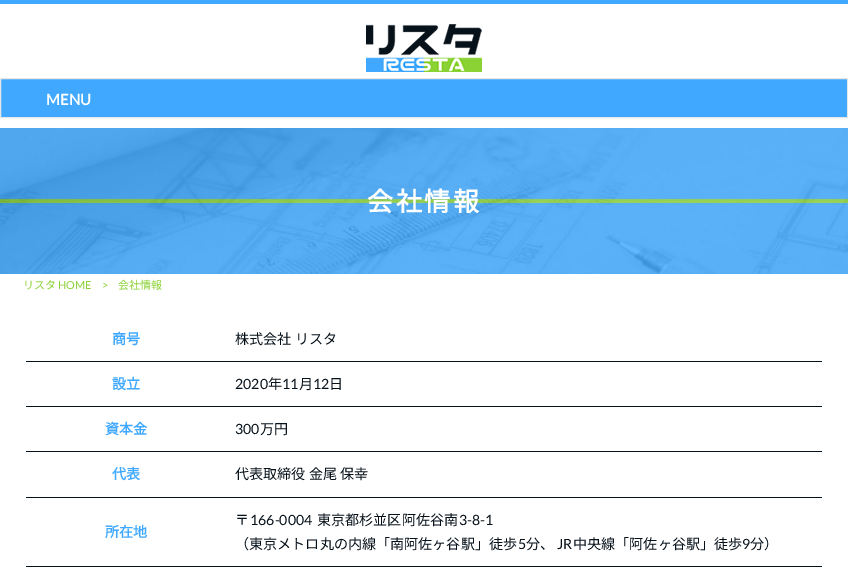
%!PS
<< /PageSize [848 585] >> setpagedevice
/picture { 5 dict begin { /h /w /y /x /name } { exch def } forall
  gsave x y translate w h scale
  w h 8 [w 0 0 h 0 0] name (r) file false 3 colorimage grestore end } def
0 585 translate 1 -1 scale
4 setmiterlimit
1 setgray
0 0 848 585 rectfill
0.251 0.663 1 setrgbcolor
0 0 848 4 rectfill
(img1.rgb) 366 24 116 48 picture
newpath 0.5 78.5 moveto 847.5 78.5 lineto 847.5 117.5 lineto 0.5 117.5 lineto closepath gsave fill grestore
0.902 setgray
stroke
/Lato-Bold [15 0 0 -15 0 0] selectfont
1 setgray
46 105 moveto (MENU) show
(img2.rgb) 0 128 848 146 picture
/NotoSansJP-Bold [26 0 0 -26 0 0] selectfont
367 211 moveto 2.5 0 (会社情報) ashow
/NotoSansJP-Thin [11 0 0 -11 0 0] selectfont
0.545 0.824 0.208 setrgbcolor
23 289 moveto (リスタ) show
/Lato-Regular [11 0 0 -11 0 0] selectfont
58 289 moveto (HOME) show
102 289 moveto (>) show
/NotoSansJP-Thin [11 0 0 -11 0 0] selectfont
118 289 moveto (会社情報) show
0.024 0.067 0.102 setrgbcolor
26 361 796 1 rectfill
/NotoSansJP-Bold [14.1 0 0 -14.1 0 0] selectfont
0.251 0.663 1 setrgbcolor
112 344 moveto (商号) show
/NotoSansJP-Thin [14.1 0 0 -14.1 0 0] selectfont
0.024 0.067 0.102 setrgbcolor
235 344 moveto (株式会社 リスタ) show
26 406 796 1 rectfill
/NotoSansJP-Bold [14.1 0 0 -14.1 0 0] selectfont
0.251 0.663 1 setrgbcolor
112 389 moveto (設立) show
/Lato-Regular [14.1 0 0 -14.1 0 0] selectfont
0.024 0.067 0.102 setrgbcolor
235 389 moveto (2020) show
/NotoSansJP-Thin [14.1 0 0 -14.1 0 0] selectfont
268 389 moveto (年) show
/Lato-Regular [14.1 0 0 -14.1 0 0] selectfont
282 389 moveto (11) show
/NotoSansJP-Thin [14.1 0 0 -14.1 0 0] selectfont
299 389 moveto (月) show
/Lato-Regular [14.1 0 0 -14.1 0 0] selectfont
313 389 moveto (12) show
/NotoSansJP-Thin [14.1 0 0 -14.1 0 0] selectfont
329 389 moveto (日) show
26 451 796 1 rectfill
/NotoSansJP-Bold [14.1 0 0 -14.1 0 0] selectfont
0.251 0.663 1 setrgbcolor
105 434 moveto (資本金) show
/Lato-Regular [14.1 0 0 -14.1 0 0] selectfont
0.024 0.067 0.102 setrgbcolor
235 434 moveto (300) show
/NotoSansJP-Thin [14.1 0 0 -14.1 0 0] selectfont
260 434 moveto (万円) show
26 497 796 1 rectfill
/NotoSansJP-Bold [14.1 0 0 -14.1 0 0] selectfont
0.251 0.663 1 setrgbcolor
112 479 moveto (代表) show
/NotoSansJP-Thin [14.1 0 0 -14.1 0 0] selectfont
0.024 0.067 0.102 setrgbcolor
235 479 moveto (代表取締役 金尾 保幸) show
26 566 796 1 rectfill
/NotoSansJP-Bold [14.1 0 0 -14.1 0 0] selectfont
0.251 0.663 1 setrgbcolor
105 537 moveto (所在地) show
/NotoSansJP-Thin [14.1 0 0 -14.1 0 0] selectfont
0.024 0.067 0.102 setrgbcolor
235 525 moveto (〒) show
/Lato-Regular [14.1 0 0 -14.1 0 0] selectfont
250 525 moveto (166-0004) show
/NotoSansJP-Thin [14.1 0 0 -14.1 0 0] selectfont
317 525 moveto (東京都杉並区阿佐谷南) show
/Lato-Regular [14.1 0 0 -14.1 0 0] selectfont
459 525 moveto (3-8-1) show
/NotoSansJP-Thin [14.1 0 0 -14.1 0 0] selectfont
235 549 moveto (（東京メトロ丸の内線「南阿佐ヶ谷駅」徒歩) show
/Lato-Regular [14.1 0 0 -14.1 0 0] selectfont
518 549 moveto (5) show
/NotoSansJP-Thin [14.1 0 0 -14.1 0 0] selectfont
526 549 moveto (分、) show
/Lato-Regular [14.1 0 0 -14.1 0 0] selectfont
557 549 moveto (JR) show
/NotoSansJP-Thin [14.1 0 0 -14.1 0 0] selectfont
573 549 moveto (中央線「阿佐ヶ谷駅」徒歩) show
/Lato-Regular [14.1 0 0 -14.1 0 0] selectfont
742 549 moveto (9) show
/NotoSansJP-Thin [14.1 0 0 -14.1 0 0] selectfont
750 549 moveto (分）) show
showpage
